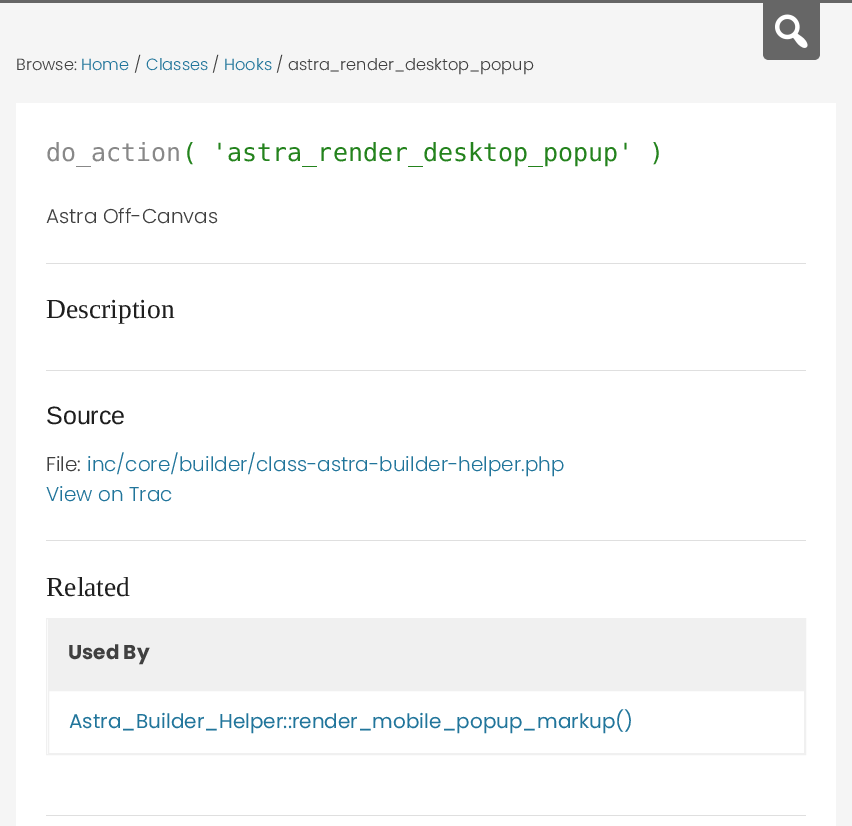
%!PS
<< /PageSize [852 826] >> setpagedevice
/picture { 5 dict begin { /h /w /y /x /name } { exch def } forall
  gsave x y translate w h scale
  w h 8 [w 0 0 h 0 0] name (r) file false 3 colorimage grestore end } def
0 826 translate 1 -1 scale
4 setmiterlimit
0.961 setgray
0 0 852 826 rectfill
0.4 setgray
0 0 852 3 rectfill
newpath 763 3 moveto 820 3 lineto 820 54 lineto 820 57.5 817.5 60 814 60 curveto 769 60 lineto 765.5 60 763 57.5 763 54 curveto closepath fill
(img1.rgb) 775 14 33 34 picture
/Poppins-Light [16.25 0 0 -16.25 0 0] selectfont
0.251 setgray
16 70 moveto (Browse:) show
0.129 0.459 0.608 setrgbcolor
81 70 moveto (Home) show
0.251 setgray
134 70 moveto (/) show
0.129 0.459 0.608 setrgbcolor
146 70 moveto (Classes) show
0.251 setgray
212 70 moveto (/) show
0.129 0.459 0.608 setrgbcolor
224 70 moveto (Hooks) show
0.251 setgray
276 70 moveto (/ astra_render_desktop_popup) show
1 setgray
16 103 820 723 rectfill
/DejaVuSansMono-Regular [25 0 0 -25 0 0] selectfont
0.533 setgray
46 161 moveto (do_action) show
0.141 0.514 0.114 setrgbcolor
182 161 moveto (\( 'astra_render_desktop_popup' \)) show
/Poppins-Light [20 0 0 -20 0 0] selectfont
0.251 setgray
46 223 moveto (Astra Off-Canvas) show
0.875 setgray
46 263 760 1 rectfill
/LiberationSerif-Regular [27.5 0 0 -27.5 0 0] selectfont
0.118 setgray
46 318 moveto (Description) show
0.875 setgray
46 370 760 1 rectfill
/LiberationSans-Regular [25 0 0 -25 0 0] selectfont
0.118 setgray
46 424 moveto (Source) show
/Poppins-Light [20 0 0 -20 0 0] selectfont
0.251 setgray
46 471 moveto (File:) show
0.129 0.459 0.608 setrgbcolor
87 471 moveto (inc/core/builder/class-astra-builder-helper.php) show
46 501 moveto (View on Trac) show
0.875 setgray
46 540 760 1 rectfill
/LiberationSerif-Regular [27.5 0 0 -27.5 0 0] selectfont
0.118 setgray
46 596 moveto (Related) show
0.941 setgray
46.5 618.5 759 136 rectstroke
48 619 757 71 rectfill
/Poppins-Bold [20 0 0 -20 0 0] selectfont
0.251 setgray
68 659 moveto (Used By) show
0.941 setgray
48.5 690.5 756 63 rectstroke
/Poppins-Regular [20 0 0 -20 0 0] selectfont
0.129 0.459 0.608 setrgbcolor
69 728 moveto (Astra_Builder_Helper::render_mobile_popup_markup\(\)) show
0.875 setgray
46 815 760 1 rectfill
showpage
